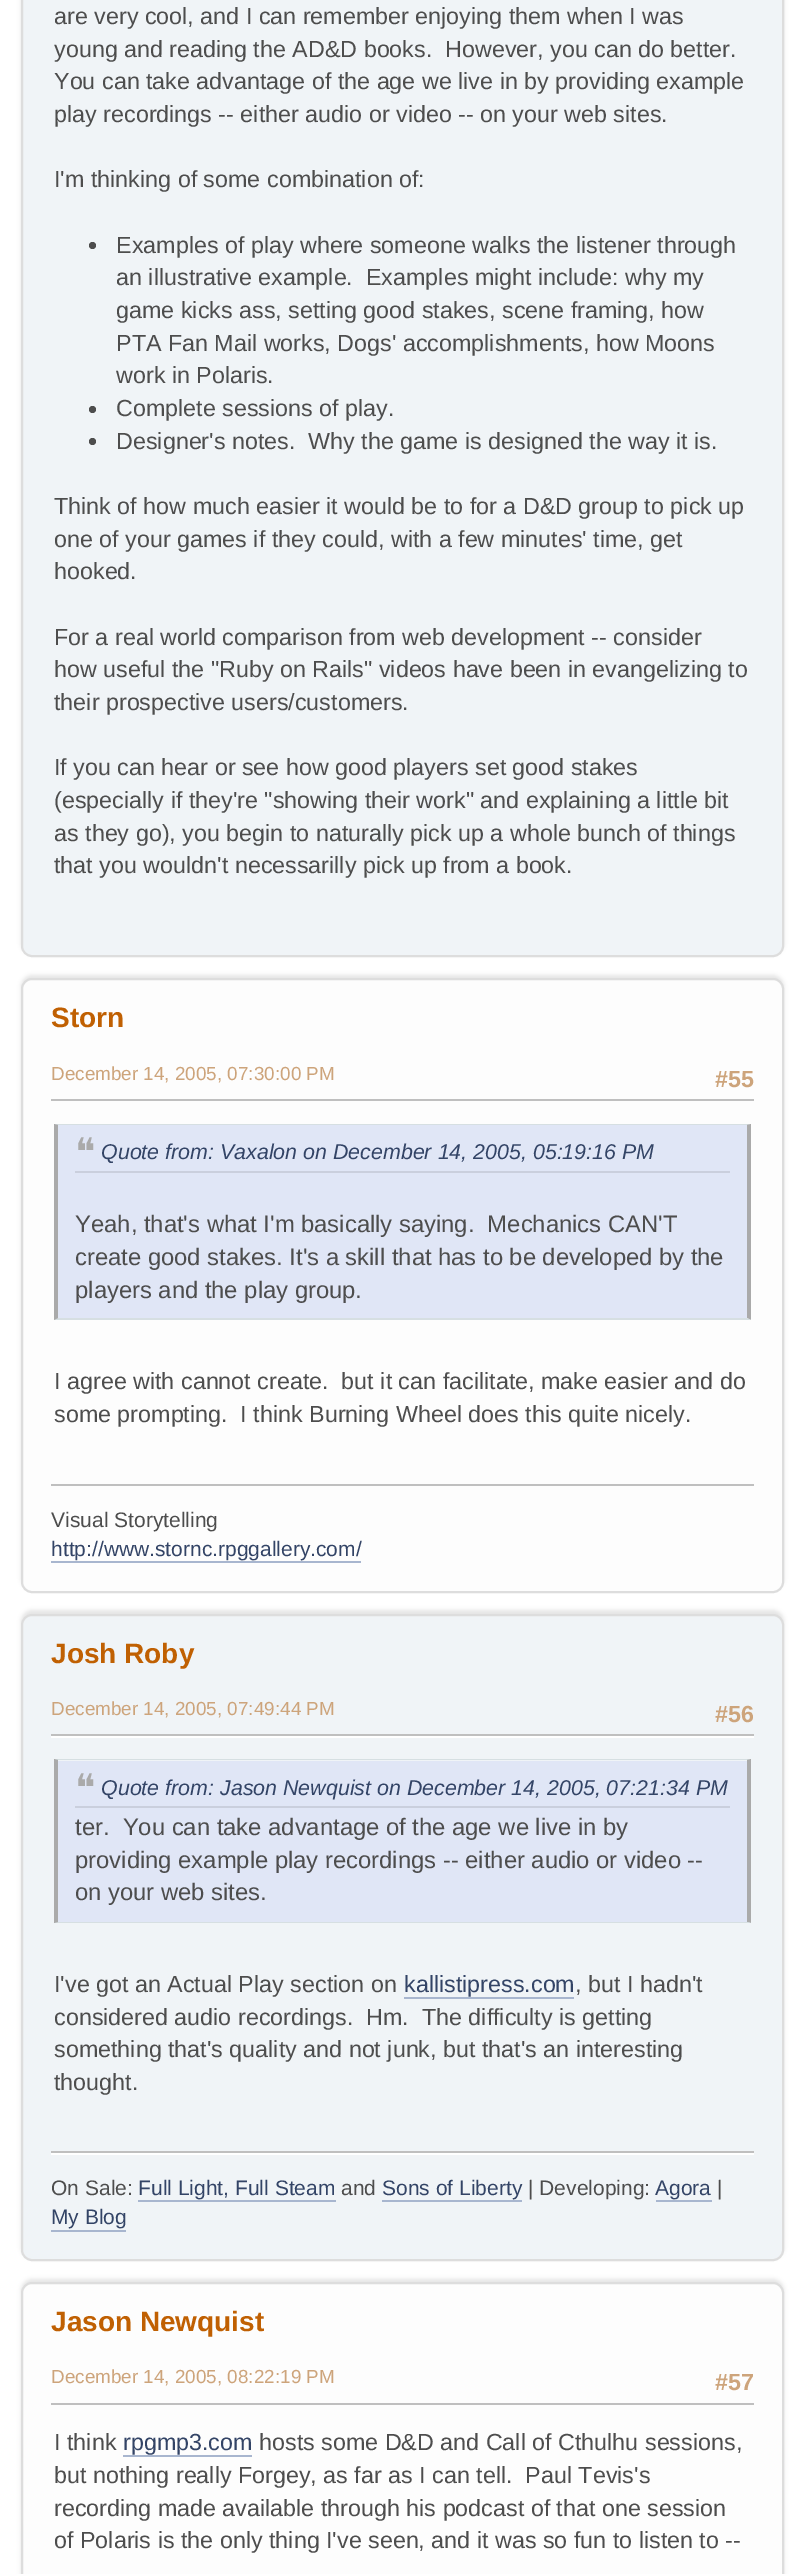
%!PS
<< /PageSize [805 2574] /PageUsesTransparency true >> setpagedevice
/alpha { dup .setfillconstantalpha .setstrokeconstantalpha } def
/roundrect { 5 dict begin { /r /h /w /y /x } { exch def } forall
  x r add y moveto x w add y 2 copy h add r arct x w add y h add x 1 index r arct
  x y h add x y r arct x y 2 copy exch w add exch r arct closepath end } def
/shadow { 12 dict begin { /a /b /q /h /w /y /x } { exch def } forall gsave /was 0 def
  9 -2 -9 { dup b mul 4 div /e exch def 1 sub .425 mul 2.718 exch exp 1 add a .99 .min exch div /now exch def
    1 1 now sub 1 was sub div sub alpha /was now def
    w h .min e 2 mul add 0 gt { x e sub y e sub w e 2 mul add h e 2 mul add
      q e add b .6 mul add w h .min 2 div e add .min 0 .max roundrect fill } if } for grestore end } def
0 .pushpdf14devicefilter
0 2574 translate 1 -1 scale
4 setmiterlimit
1 setgray
0 0 805 2574 rectfill
0 setgray
21 -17 763 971 11 2 0.1 shadow
0.941 0.957 0.969 setrgbcolor
22 -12 761 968 10 roundrect gsave fill grestore
0.867 setgray
2 setlinewidth
stroke
/LiberationSans-Regular [23.3 0 0 -23.3 0 0] selectfont
0.302 setgray
54 24 moveto (are very cool, and I can remember enjoying them when I was) show
54 57 moveto (young and reading the AD&D books.  However, you can do better.) show
54 89 moveto (You can take advantage of the age we live in by providing example) show
54 122 moveto (play recordings -- either audio or video -- on your web sites.) show
54 187 moveto (I'm thinking of some combination of:) show
newpath 92.5 245.5 3.5 0 360 arc closepath fill
116 253 moveto (Examples of play where someone walks the listener through) show
116 285 moveto (an illustrative example.  Examples might include: why my) show
116 318 moveto (game kicks ass, setting good stakes, scene framing, how) show
116 351 moveto (PTA Fan Mail works, Dogs' accomplishments, how Moons) show
116 383 moveto (work in Polaris.) show
newpath 92.5 409.5 3.5 0 360 arc closepath fill
116 416 moveto (Complete sessions of play.) show
newpath 92.5 441.5 3.5 0 360 arc closepath fill
116 449 moveto (Designer's notes.  Why the game is designed the way it is.) show
54 514 moveto (Think of how much easier it would be to for a D&D group to pick up) show
54 547 moveto (one of your games if they could, with a few minutes' time, get) show
54 579 moveto (hooked.) show
54 645 moveto (For a real world comparison from web development -- consider) show
54 677 moveto (how useful the "Ruby on Rails" videos have been in evangelizing to) show
54 710 moveto (their prospective users/customers.) show
54 775 moveto (If you can hear or see how good players set good stakes) show
54 808 moveto (\(especially if they're "showing their work" and explaining a little bit) show
54 841 moveto (as they go\), you begin to naturally pick up a whole bunch of things) show
54 873 moveto (that you wouldn't necessarilly pick up from a book.) show
0 setgray
21 975 763 614 11 2 0.1 shadow
0.992 setgray
22 979 761 613 10 roundrect gsave fill grestore
0.867 setgray
stroke
/LiberationSans-Bold [28 0 0 -28 0 0] selectfont
0.753 0.376 0.008 setrgbcolor
51 1027 moveto (Storn) show
/LiberationSans-Regular [18.9 0 0 -18.9 0 0] selectfont
0.804 0.643 0.482 setrgbcolor
51 1080 moveto (December 14, 2005, 07:30:00 PM) show
/LiberationSans-Bold [23.3 0 0 -23.3 0 0] selectfont
715 1087 moveto (#55) show
0.749 setgray
51 1099 703 2 rectfill
0.878 0.902 0.965 setrgbcolor
58 1125 689 193 rectfill
0.839 0.875 0.886 setrgbcolor
newpath 54 1124 moveto 751 1124 lineto 747 1125 lineto 58 1125 lineto closepath fill
0.667 setgray
newpath 751 1124 moveto 751 1320 lineto 747 1318 lineto 747 1125 lineto closepath fill
0.839 0.875 0.886 setrgbcolor
newpath 751 1320 moveto 54 1320 lineto 58 1318 lineto 747 1318 lineto closepath fill
0.667 setgray
newpath 54 1320 moveto 54 1124 lineto 58 1125 lineto 58 1318 lineto closepath fill
0.792 0.812 0.867 setrgbcolor
75 1171 655 2 rectfill
/DejaVuSans-Regular [38 0 0 -38 0 0] selectfont
0.667 setgray
75 1165 moveto (❝) show
/LiberationSans-Italic [21.4 0 0 -21.4 0 0] selectfont
0.2 0.267 0.4 setrgbcolor
101 1159 moveto (Quote from: Vaxalon on December 14, 2005, 05:19:16 PM) show
/LiberationSans-Regular [23.8 0 0 -23.8 0 0] selectfont
0.302 setgray
75 1232 moveto (Yeah, that's what I'm basically saying.  Mechanics CAN'T) show
75 1265 moveto (create good stakes. It's a skill that has to be developed by the) show
75 1298 moveto (players and the play group.) show
/LiberationSans-Regular [23.3 0 0 -23.3 0 0] selectfont
54 1389 moveto (I agree with cannot create.  but it can facilitate, make easier and do) show
54 1422 moveto (some prompting.  I think Burning Wheel does this quite nicely.) show
0.749 setgray
51 1484 703 2 rectfill
/LiberationSans-Regular [21 0 0 -21 0 0] selectfont
0.302 setgray
51 1527 moveto (Visual Storytelling) show
0.2 0.267 0.4 setrgbcolor
51 1556 moveto (http://www.stornc.rpggallery.com/) show
0.659 0.714 0.812 setrgbcolor
51 1561 310 2 rectfill
0 setgray
21 1610 763 648 11 2 0.1 shadow
0.941 0.957 0.969 setrgbcolor
22 1615 761 645 10 roundrect gsave fill grestore
0.867 setgray
stroke
/LiberationSans-Bold [28 0 0 -28 0 0] selectfont
0.753 0.376 0.008 setrgbcolor
51 1663 moveto (Josh Roby) show
/LiberationSans-Regular [18.9 0 0 -18.9 0 0] selectfont
0.804 0.643 0.482 setrgbcolor
51 1715 moveto (December 14, 2005, 07:49:44 PM) show
/LiberationSans-Bold [23.3 0 0 -23.3 0 0] selectfont
715 1722 moveto (#56) show
1 setgray
51 1736 703 2 rectfill
0.749 setgray
51 1734 703 2 rectfill
0.878 0.902 0.965 setrgbcolor
58 1761 689 161 rectfill
0.839 0.875 0.886 setrgbcolor
newpath 54 1759 moveto 751 1759 lineto 747 1760 lineto 58 1760 lineto closepath fill
0.667 setgray
newpath 751 1759 moveto 751 1923 lineto 747 1922 lineto 747 1760 lineto closepath fill
0.839 0.875 0.886 setrgbcolor
newpath 751 1923 moveto 54 1923 lineto 58 1922 lineto 747 1922 lineto closepath fill
0.667 setgray
newpath 54 1923 moveto 54 1759 lineto 58 1760 lineto 58 1922 lineto closepath fill
0.792 0.812 0.867 setrgbcolor
75 1806 655 2 rectfill
/DejaVuSans-Regular [38 0 0 -38 0 0] selectfont
0.667 setgray
75 1801 moveto (❝) show
/LiberationSans-Italic [21.4 0 0 -21.4 0 0] selectfont
0.2 0.267 0.4 setrgbcolor
101 1795 moveto (Quote from: Jason Newquist on December 14, 2005, 07:21:34 PM) show
/LiberationSans-Regular [23.8 0 0 -23.8 0 0] selectfont
0.302 setgray
75 1835 moveto (ter.  You can take advantage of the age we live in by) show
75 1868 moveto (providing example play recordings -- either audio or video --) show
75 1900 moveto (on your web sites.) show
/LiberationSans-Regular [23.3 0 0 -23.3 0 0] selectfont
54 1992 moveto (I've got an Actual Play section on) show
0.2 0.267 0.4 setrgbcolor
404 1992 moveto (kallistipress.com) show
0.659 0.714 0.812 setrgbcolor
404 1997 170 2 rectfill
0.302 setgray
575 1992 moveto (, but I hadn't) show
54 2025 moveto (considered audio recordings.  Hm.  The difficulty is getting) show
54 2057 moveto (something that's quality and not junk, but that's an interesting) show
54 2090 moveto (thought.) show
1 setgray
51 2153 703 2 rectfill
0.749 setgray
51 2151 703 2 rectfill
/LiberationSans-Regular [21 0 0 -21 0 0] selectfont
0.302 setgray
51 2195 moveto (On Sale:) show
0.2 0.267 0.4 setrgbcolor
138 2195 moveto (Full Light, Full Steam) show
0.659 0.714 0.812 setrgbcolor
138 2200 198 2 rectfill
0.302 setgray
341 2195 moveto (and) show
0.2 0.267 0.4 setrgbcolor
382 2195 moveto (Sons of Liberty) show
0.659 0.714 0.812 setrgbcolor
382 2200 140 2 rectfill
0.302 setgray
528 2195 moveto (| Developing:) show
0.2 0.267 0.4 setrgbcolor
655 2195 moveto (Agora) show
0.659 0.714 0.812 setrgbcolor
656 2200 56 2 rectfill
0.302 setgray
717 2195 moveto (|) show
0.2 0.267 0.4 setrgbcolor
51 2224 moveto (My Blog) show
0.659 0.714 0.812 setrgbcolor
51 2230 75 2 rectfill
0 setgray
21 2279 763 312 11 2 0.1 shadow
0.992 setgray
22 2283 761 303 10 roundrect gsave fill grestore
0.867 setgray
stroke
/LiberationSans-Bold [28 0 0 -28 0 0] selectfont
0.753 0.376 0.008 setrgbcolor
51 2331 moveto (Jason Newquist) show
/LiberationSans-Regular [18.9 0 0 -18.9 0 0] selectfont
0.804 0.643 0.482 setrgbcolor
51 2383 moveto (December 14, 2005, 08:22:19 PM) show
/LiberationSans-Bold [23.3 0 0 -23.3 0 0] selectfont
715 2390 moveto (#57) show
0.749 setgray
51 2403 703 2 rectfill
/LiberationSans-Regular [23.3 0 0 -23.3 0 0] selectfont
0.302 setgray
54 2450 moveto (I think) show
0.2 0.267 0.4 setrgbcolor
123 2450 moveto (rpgmp3.com) show
0.659 0.714 0.812 setrgbcolor
123 2455 129 2 rectfill
0.302 setgray
259 2450 moveto (hosts some D&D and Call of Cthulhu sessions,) show
54 2483 moveto (but nothing really Forgey, as far as I can tell.  Paul Tevis's) show
54 2516 moveto (recording made available through his podcast of that one session) show
54 2548 moveto (of Polaris is the only thing I've seen, and it was so fun to listen to --) show
.poppdf14devicefilter showpage
